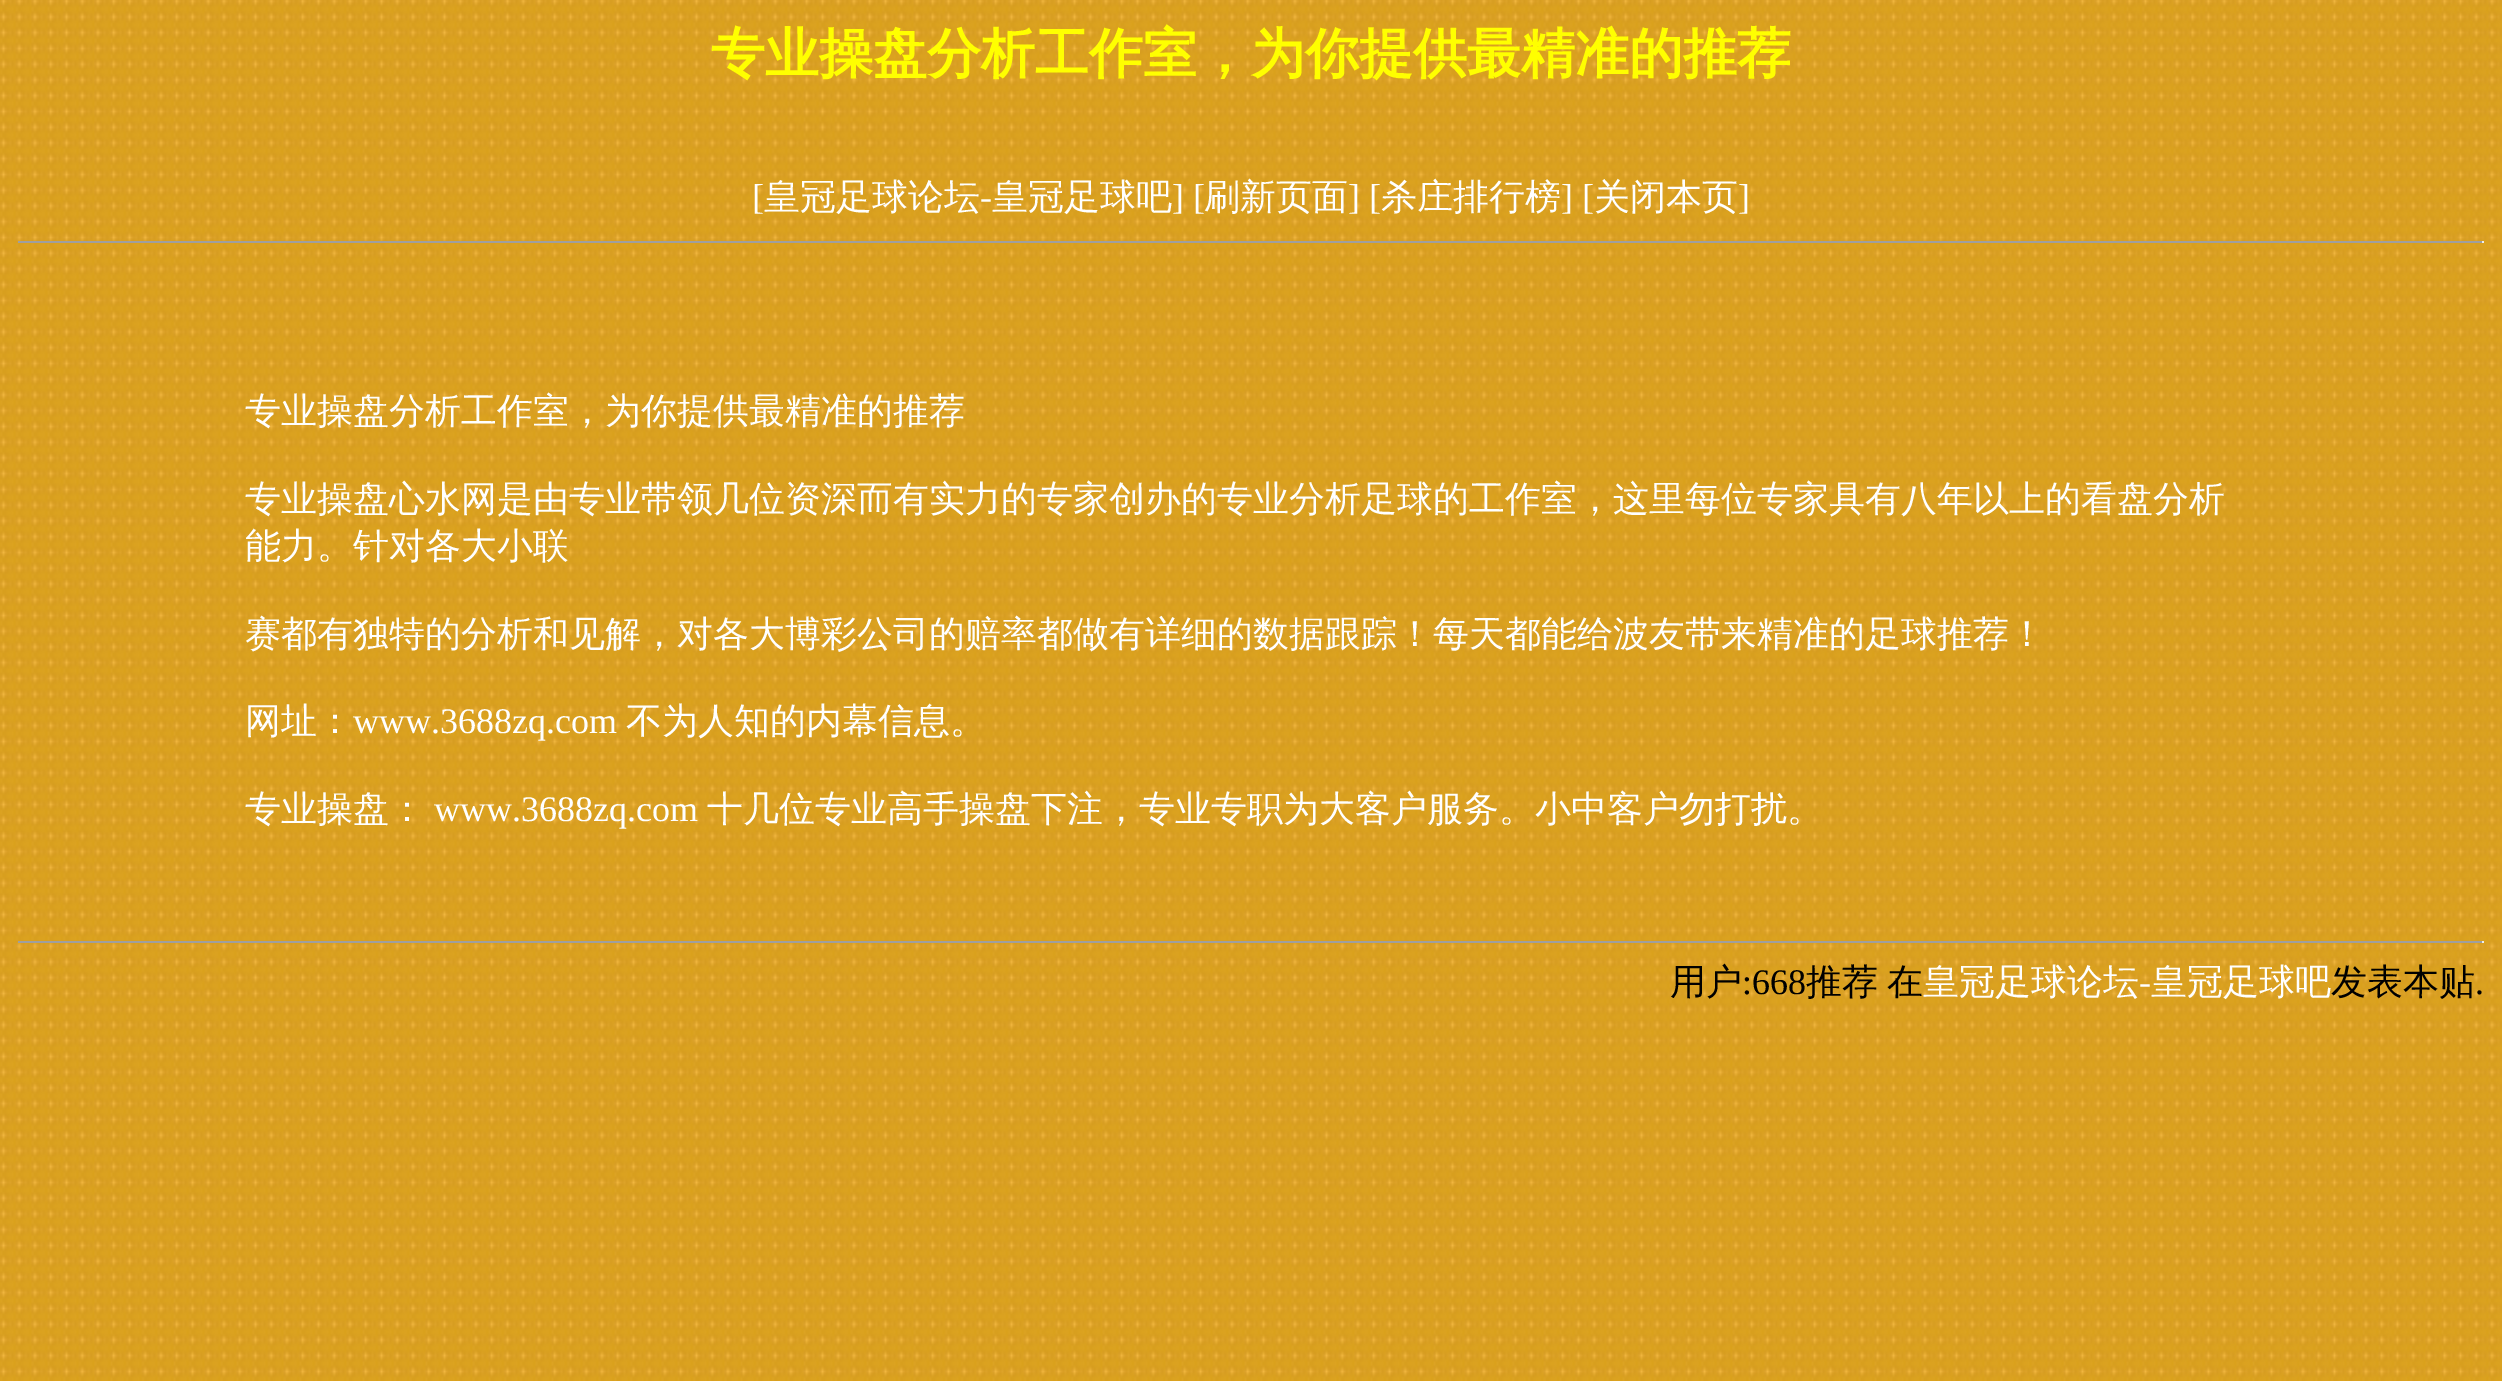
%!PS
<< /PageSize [2502 1381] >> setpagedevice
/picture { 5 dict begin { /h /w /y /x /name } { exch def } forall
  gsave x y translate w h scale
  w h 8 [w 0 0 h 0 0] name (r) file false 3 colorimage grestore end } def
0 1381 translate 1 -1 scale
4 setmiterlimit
1 setgray
0 0 2502 1381 rectfill
(img1.rgb) 0 0 2502 1381 picture
/WenQuanYiZenHei-Bold [54 0 0 -54 0 0] selectfont
1 1 0 setrgbcolor
711 72 moveto (专业操盘分析工作室，为你提供最精准的推荐) show
/LiberationSerif-Regular [36 0 0 -36 0 0] selectfont
1 setgray
752 209 moveto ([) show
/WenQuanYiZenHei-Medium [36 0 0 -36 0 0] selectfont
764 209 moveto (皇冠足球论坛) show
/LiberationSerif-Regular [36 0 0 -36 0 0] selectfont
980 209 moveto (-) show
/WenQuanYiZenHei-Medium [36 0 0 -36 0 0] selectfont
992 209 moveto (皇冠足球吧) show
/LiberationSerif-Regular [36 0 0 -36 0 0] selectfont
1172 209 moveto (] [) show
/WenQuanYiZenHei-Medium [36 0 0 -36 0 0] selectfont
1204 209 moveto (刷新页面) show
/LiberationSerif-Regular [36 0 0 -36 0 0] selectfont
1348 209 moveto (] [) show
/WenQuanYiZenHei-Medium [36 0 0 -36 0 0] selectfont
1381 209 moveto (杀庄排行榜) show
/LiberationSerif-Regular [36 0 0 -36 0 0] selectfont
1561 209 moveto (] [) show
/WenQuanYiZenHei-Medium [36 0 0 -36 0 0] selectfont
1594 209 moveto (关闭本页) show
/LiberationSerif-Regular [36 0 0 -36 0 0] selectfont
1738 209 moveto (]) show
0.624 setgray
18 241 2466 2 rectfill
0.933 setgray
2482 241 2 2 rectfill
/WenQuanYiZenHei-Medium [36 0 0 -36 0 0] selectfont
1 setgray
245 423 moveto (专业操盘分析工作室，为你提供最精准的推荐) show
245 511 moveto (专业操盘心水网是由专业带领几位资深而有实力的专家创办的专业分析足球的工作室，这里每位专家具有八年以上的看盘分析) show
245 558 moveto (能力。针对各大小联) show
245 646 moveto (赛都有独特的分析和见解，对各大博彩公司的赔率都做有详细的数据跟踪！每天都能给波友带来精准的足球推荐！) show
245 733 moveto (网址：) show
/LiberationSerif-Regular [36 0 0 -36 0 0] selectfont
353 733 moveto (www.3688zq.com) show
/WenQuanYiZenHei-Medium [36 0 0 -36 0 0] selectfont
626 733 moveto (不为人知的内幕信息。) show
245 821 moveto (专业操盘：) show
/LiberationSerif-Regular [36 0 0 -36 0 0] selectfont
434 821 moveto (www.3688zq.com) show
/WenQuanYiZenHei-Medium [36 0 0 -36 0 0] selectfont
707 821 moveto (十几位专业高手操盘下注，专业专职为大客户服务。小中客户勿打扰。) show
0.624 setgray
18 941 2466 2 rectfill
0.933 setgray
2482 941 2 2 rectfill
0 setgray
1670 994 moveto (用户) show
/LiberationSerif-Regular [36 0 0 -36 0 0] selectfont
1742 994 moveto (:668) show
/WenQuanYiZenHei-Medium [36 0 0 -36 0 0] selectfont
1806 994 moveto (推荐) show
1887 994 moveto (在) show
1 setgray
1923 994 moveto (皇冠足球论坛) show
/LiberationSerif-Regular [36 0 0 -36 0 0] selectfont
2139 994 moveto (-) show
/WenQuanYiZenHei-Medium [36 0 0 -36 0 0] selectfont
2151 994 moveto (皇冠足球吧) show
0 setgray
2331 994 moveto (发表本贴) show
/LiberationSerif-Regular [36 0 0 -36 0 0] selectfont
2475 994 moveto (.) show
showpage
